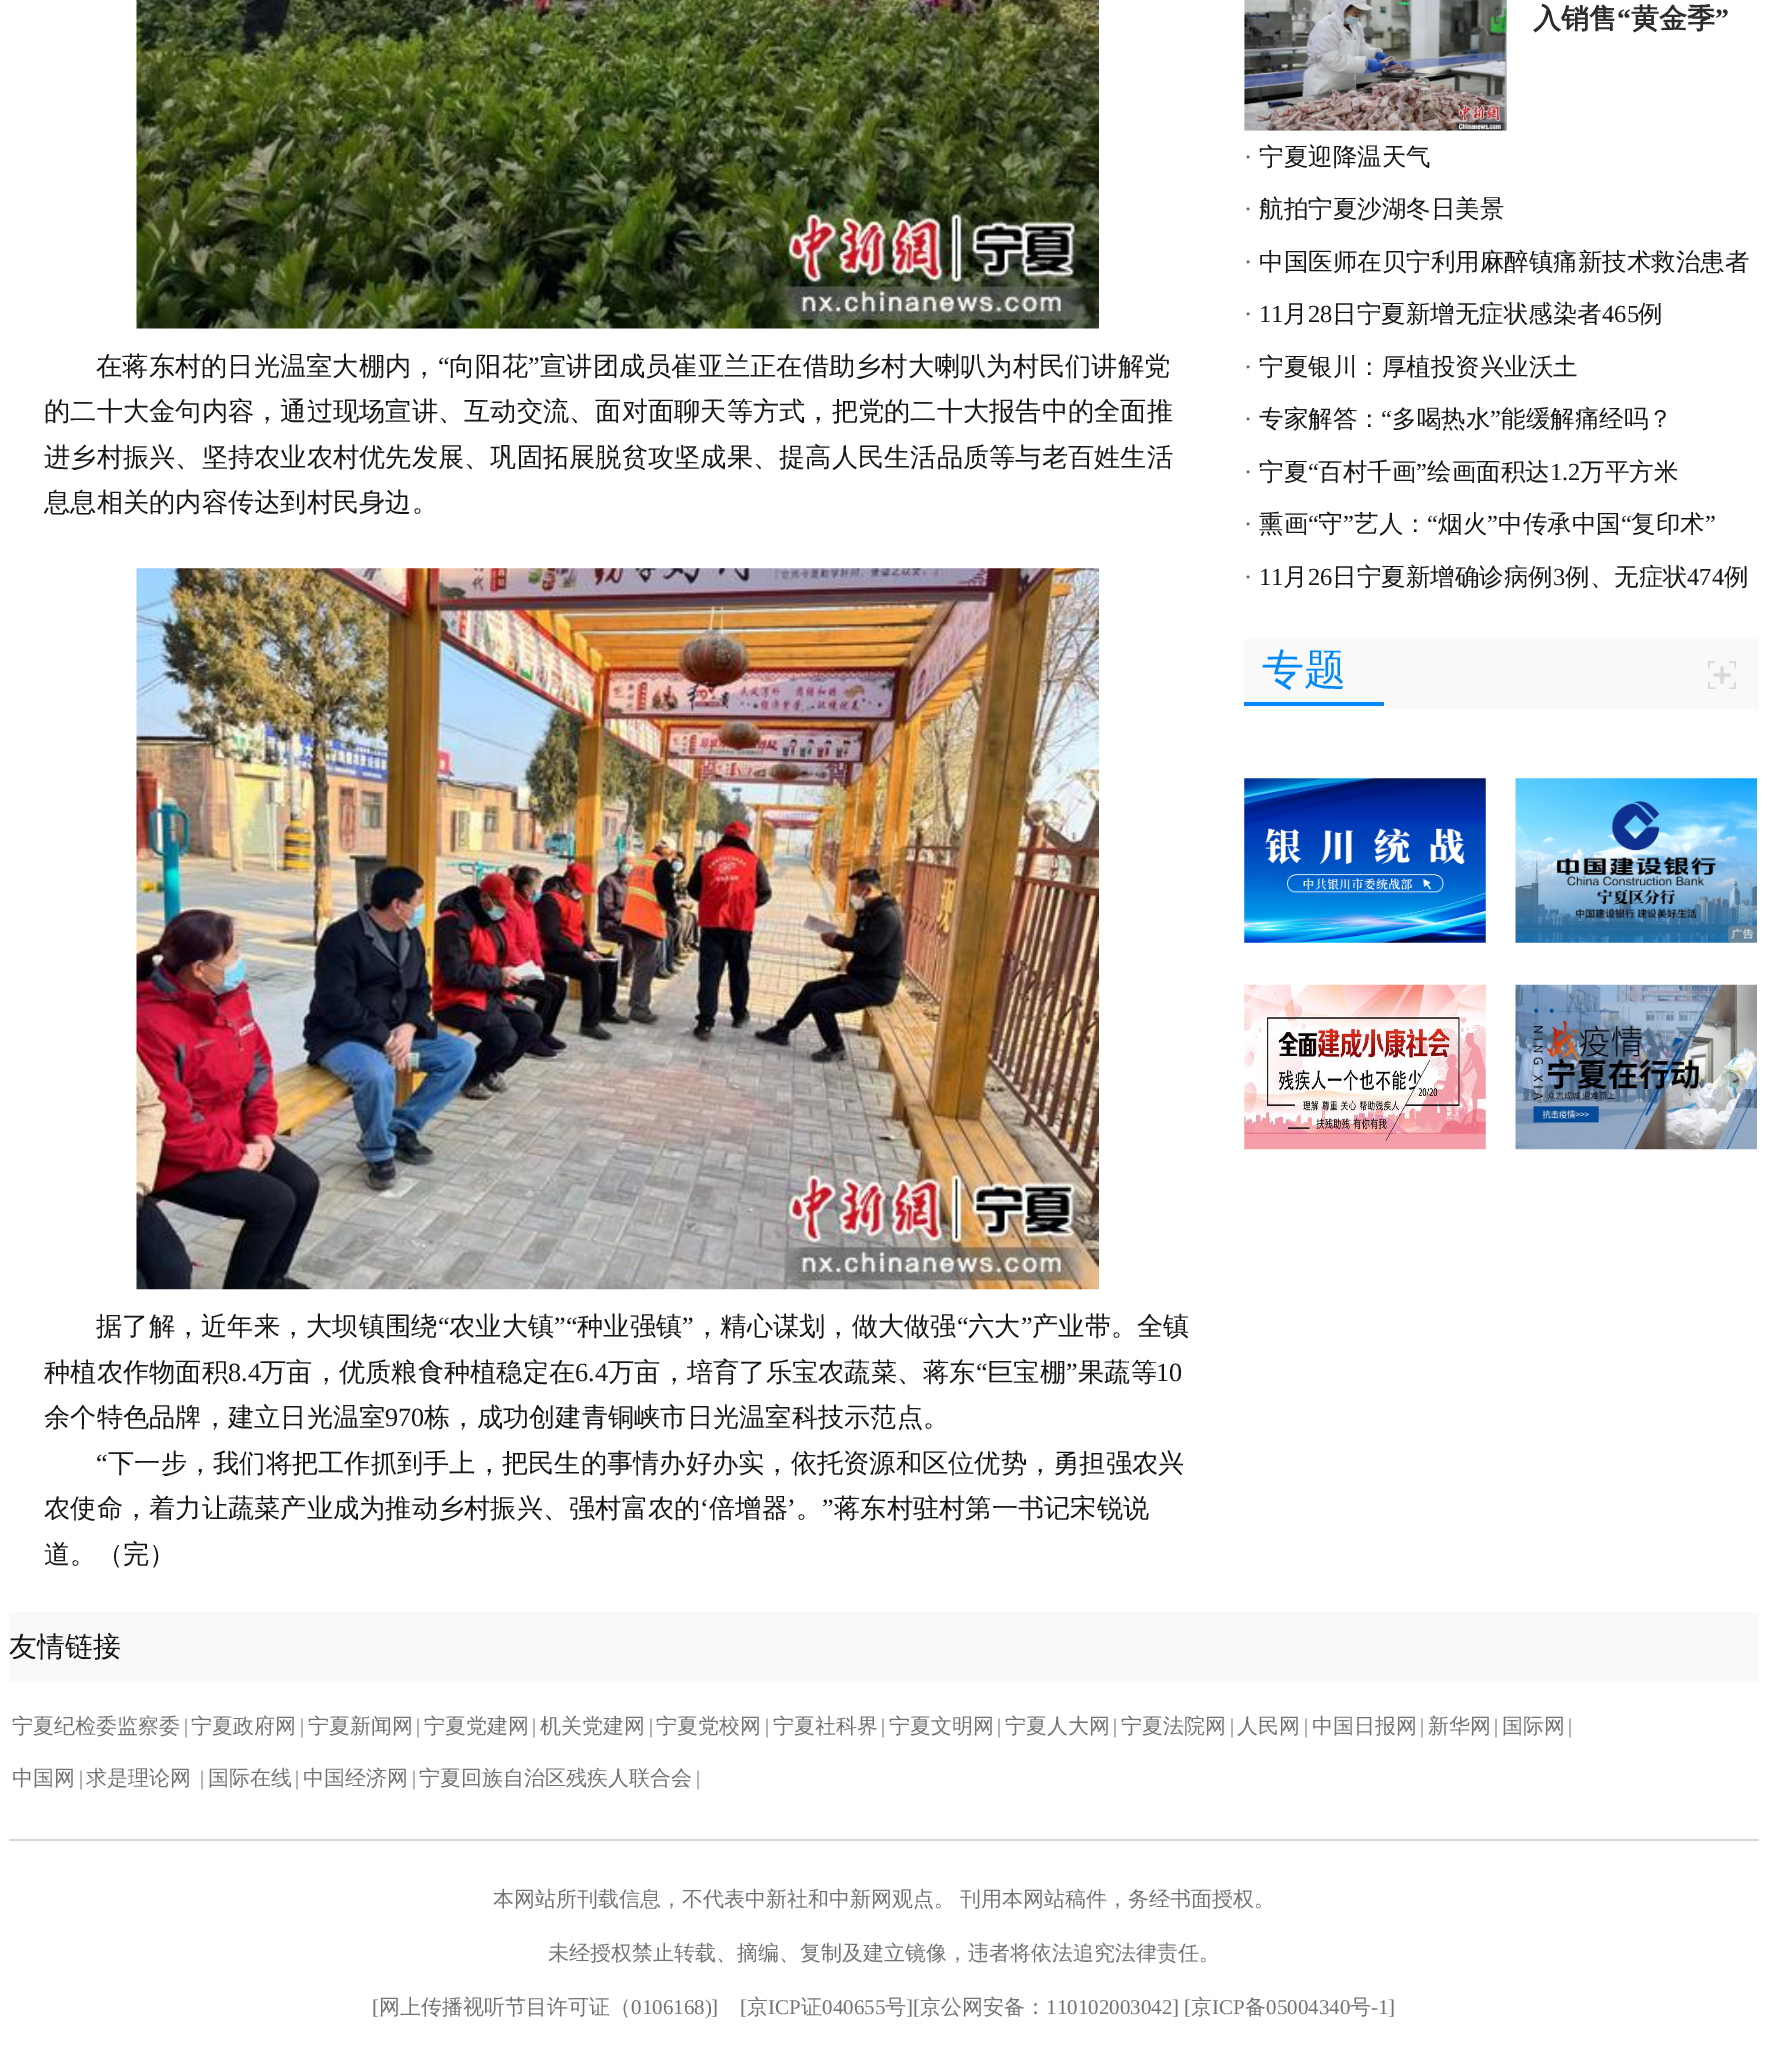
%!PS
<< /PageSize [1767 2055] >> setpagedevice
/picture { 5 dict begin { /h /w /y /x /name } { exch def } forall
  gsave x y translate w h scale
  w h 8 [w 0 0 h 0 0] name (r) file false 3 colorimage grestore end } def
0 2055 translate 1 -1 scale
4 setmiterlimit
1 setgray
0 0 1767 2055 rectfill
(img1.rgb) 136 0 963 329 picture
/WenQuanYiZenHei-Medium [26.25 0 0 -26.25 0 0] selectfont
0.09 setgray
96 375 moveto (在蒋东村的日光温室大棚内，) show
/LiberationSerif-Regular [26.25 0 0 -26.25 0 0] selectfont
438 375 moveto (“) show
/WenQuanYiZenHei-Medium [26.25 0 0 -26.25 0 0] selectfont
449 375 moveto (向阳花) show
/LiberationSerif-Regular [26.25 0 0 -26.25 0 0] selectfont
528 375 moveto (”) show
/WenQuanYiZenHei-Medium [26.25 0 0 -26.25 0 0] selectfont
540 375 moveto (宣讲团成员崔亚兰正在借助乡村大喇叭为村民们讲解党) show
44 420 moveto (的二十大金句内容，通过现场宣讲、互动交流、面对面聊天等方式，把党的二十大报告中的全面推) show
44 466 moveto (进乡村振兴、坚持农业农村优先发展、巩固拓展脱贫攻坚成果、提高人民生活品质等与老百姓生活) show
44 511 moveto (息息相关的内容传达到村民身边。) show
(img2.rgb) 136 568 963 722 picture
96 1335 moveto (据了解，近年来，大坝镇围绕) show
/LiberationSerif-Regular [26.25 0 0 -26.25 0 0] selectfont
438 1335 moveto (“) show
/WenQuanYiZenHei-Medium [26.25 0 0 -26.25 0 0] selectfont
449 1335 moveto (农业大镇) show
/LiberationSerif-Regular [26.25 0 0 -26.25 0 0] selectfont
554 1335 moveto (”“) show
/WenQuanYiZenHei-Medium [26.25 0 0 -26.25 0 0] selectfont
577 1335 moveto (种业强镇) show
/LiberationSerif-Regular [26.25 0 0 -26.25 0 0] selectfont
682 1335 moveto (”) show
/WenQuanYiZenHei-Medium [26.25 0 0 -26.25 0 0] selectfont
694 1335 moveto (，精心谋划，做大做强) show
/LiberationSerif-Regular [26.25 0 0 -26.25 0 0] selectfont
957 1335 moveto (“) show
/WenQuanYiZenHei-Medium [26.25 0 0 -26.25 0 0] selectfont
968 1335 moveto (六大) show
/LiberationSerif-Regular [26.25 0 0 -26.25 0 0] selectfont
1021 1335 moveto (”) show
/WenQuanYiZenHei-Medium [26.25 0 0 -26.25 0 0] selectfont
1032 1335 moveto (产业带。全镇) show
44 1381 moveto (种植农作物面积) show
/LiberationSerif-Regular [26.25 0 0 -26.25 0 0] selectfont
228 1381 moveto (8.4) show
/WenQuanYiZenHei-Medium [26.25 0 0 -26.25 0 0] selectfont
260 1381 moveto (万亩，优质粮食种植稳定在) show
/LiberationSerif-Regular [26.25 0 0 -26.25 0 0] selectfont
575 1381 moveto (6.4) show
/WenQuanYiZenHei-Medium [26.25 0 0 -26.25 0 0] selectfont
608 1381 moveto (万亩，培育了乐宝农蔬菜、蒋东) show
/LiberationSerif-Regular [26.25 0 0 -26.25 0 0] selectfont
976 1381 moveto (“) show
/WenQuanYiZenHei-Medium [26.25 0 0 -26.25 0 0] selectfont
987 1381 moveto (巨宝棚) show
/LiberationSerif-Regular [26.25 0 0 -26.25 0 0] selectfont
1066 1381 moveto (”) show
/WenQuanYiZenHei-Medium [26.25 0 0 -26.25 0 0] selectfont
1078 1381 moveto (果蔬等) show
/LiberationSerif-Regular [26.25 0 0 -26.25 0 0] selectfont
1156 1381 moveto (10) show
/WenQuanYiZenHei-Medium [26.25 0 0 -26.25 0 0] selectfont
44 1426 moveto (余个特色品牌，建立日光温室) show
/LiberationSerif-Regular [26.25 0 0 -26.25 0 0] selectfont
385 1426 moveto (970) show
/WenQuanYiZenHei-Medium [26.25 0 0 -26.25 0 0] selectfont
424 1426 moveto (栋，成功创建青铜峡市日光温室科技示范点。) show
/LiberationSerif-Regular [26.25 0 0 -26.25 0 0] selectfont
96 1472 moveto (“) show
/WenQuanYiZenHei-Medium [26.25 0 0 -26.25 0 0] selectfont
108 1472 moveto (下一步，我们将把工作抓到手上，把民生的事情办好办实，依托资源和区位优势，勇担强农兴) show
44 1517 moveto (农使命，着力让蔬菜产业成为推动乡村振兴、强村富农的) show
/LiberationSerif-Regular [26.25 0 0 -26.25 0 0] selectfont
700 1517 moveto (‘) show
/WenQuanYiZenHei-Medium [26.25 0 0 -26.25 0 0] selectfont
709 1517 moveto (倍增器) show
/LiberationSerif-Regular [26.25 0 0 -26.25 0 0] selectfont
787 1517 moveto (’) show
822 1517 moveto (”) show
/WenQuanYiZenHei-Medium [26.25 0 0 -26.25 0 0] selectfont
834 1517 moveto (蒋东村驻村第一书记宋锐说) show
796 1517 moveto (。) show
44 1563 moveto (道。（完）) show
(img3.rgb) 1244 0 263 131 picture
/WenQuanYiZenHei-Bold [28 0 0 -28 0 0] selectfont
0.176 setgray
1533 28 moveto (入销售) show
/LiberationSerif-Bold [28 0 0 -28 0 0] selectfont
1617 28 moveto (“) show
/WenQuanYiZenHei-Bold [28 0 0 -28 0 0] selectfont
1631 28 moveto (黄金季) show
/LiberationSerif-Bold [28 0 0 -28 0 0] selectfont
1715 28 moveto (”) show
/LiberationSerif-Regular [24.5 0 0 -24.5 0 0] selectfont
0.376 setgray
1244 165 moveto (·) show
/WenQuanYiZenHei-Medium [24.5 0 0 -24.5 0 0] selectfont
0.09 setgray
1259 165 moveto (宁夏迎降温天气) show
/LiberationSerif-Regular [24.5 0 0 -24.5 0 0] selectfont
0.376 setgray
1244 217 moveto (·) show
/WenQuanYiZenHei-Medium [24.5 0 0 -24.5 0 0] selectfont
0.09 setgray
1259 217 moveto (航拍宁夏沙湖冬日美景) show
/LiberationSerif-Regular [24.5 0 0 -24.5 0 0] selectfont
0.376 setgray
1244 270 moveto (·) show
/WenQuanYiZenHei-Medium [24.5 0 0 -24.5 0 0] selectfont
0.09 setgray
1259 270 moveto (中国医师在贝宁利用麻醉镇痛新技术救治患者) show
/LiberationSerif-Regular [24.5 0 0 -24.5 0 0] selectfont
0.376 setgray
1244 322 moveto (·) show
0.09 setgray
1259 322 moveto (11) show
/WenQuanYiZenHei-Medium [24.5 0 0 -24.5 0 0] selectfont
1283 322 moveto (月) show
/LiberationSerif-Regular [24.5 0 0 -24.5 0 0] selectfont
1308 322 moveto (28) show
/WenQuanYiZenHei-Medium [24.5 0 0 -24.5 0 0] selectfont
1332 322 moveto (日宁夏新增无症状感染者) show
/LiberationSerif-Regular [24.5 0 0 -24.5 0 0] selectfont
1602 322 moveto (465) show
/WenQuanYiZenHei-Medium [24.5 0 0 -24.5 0 0] selectfont
1638 322 moveto (例) show
/LiberationSerif-Regular [24.5 0 0 -24.5 0 0] selectfont
0.376 setgray
1244 375 moveto (·) show
/WenQuanYiZenHei-Medium [24.5 0 0 -24.5 0 0] selectfont
0.09 setgray
1259 375 moveto (宁夏银川：厚植投资兴业沃土) show
1259 427 moveto (专家解答：) show
/LiberationSerif-Regular [24.5 0 0 -24.5 0 0] selectfont
1381 427 moveto (“) show
/WenQuanYiZenHei-Medium [24.5 0 0 -24.5 0 0] selectfont
1392 427 moveto (多喝热水) show
/LiberationSerif-Regular [24.5 0 0 -24.5 0 0] selectfont
1490 427 moveto (”) show
/WenQuanYiZenHei-Medium [24.5 0 0 -24.5 0 0] selectfont
1501 427 moveto (能缓解痛经吗？) show
/LiberationSerif-Regular [24.5 0 0 -24.5 0 0] selectfont
0.376 setgray
1244 427 moveto (·) show
1244 480 moveto (·) show
/WenQuanYiZenHei-Medium [24.5 0 0 -24.5 0 0] selectfont
0.09 setgray
1259 480 moveto (宁夏) show
/LiberationSerif-Regular [24.5 0 0 -24.5 0 0] selectfont
1308 480 moveto (“) show
/WenQuanYiZenHei-Medium [24.5 0 0 -24.5 0 0] selectfont
1318 480 moveto (百村千画) show
/LiberationSerif-Regular [24.5 0 0 -24.5 0 0] selectfont
1416 480 moveto (”) show
/WenQuanYiZenHei-Medium [24.5 0 0 -24.5 0 0] selectfont
1427 480 moveto (绘画面积达) show
/LiberationSerif-Regular [24.5 0 0 -24.5 0 0] selectfont
1550 480 moveto (1.2) show
/WenQuanYiZenHei-Medium [24.5 0 0 -24.5 0 0] selectfont
1580 480 moveto (万平方米) show
1259 532 moveto (熏画) show
/LiberationSerif-Regular [24.5 0 0 -24.5 0 0] selectfont
1308 532 moveto (“) show
/WenQuanYiZenHei-Medium [24.5 0 0 -24.5 0 0] selectfont
1318 532 moveto (守) show
/LiberationSerif-Regular [24.5 0 0 -24.5 0 0] selectfont
1343 532 moveto (”) show
/WenQuanYiZenHei-Medium [24.5 0 0 -24.5 0 0] selectfont
1354 532 moveto (艺人：) show
/LiberationSerif-Regular [24.5 0 0 -24.5 0 0] selectfont
1427 532 moveto (“) show
/WenQuanYiZenHei-Medium [24.5 0 0 -24.5 0 0] selectfont
1438 532 moveto (烟火) show
/LiberationSerif-Regular [24.5 0 0 -24.5 0 0] selectfont
1487 532 moveto (”) show
/WenQuanYiZenHei-Medium [24.5 0 0 -24.5 0 0] selectfont
1498 532 moveto (中传承中国) show
/LiberationSerif-Regular [24.5 0 0 -24.5 0 0] selectfont
1621 532 moveto (“) show
/WenQuanYiZenHei-Medium [24.5 0 0 -24.5 0 0] selectfont
1631 532 moveto (复印术) show
/LiberationSerif-Regular [24.5 0 0 -24.5 0 0] selectfont
1705 532 moveto (”) show
0.376 setgray
1244 532 moveto (·) show
1244 585 moveto (·) show
0.09 setgray
1259 585 moveto (11) show
/WenQuanYiZenHei-Medium [24.5 0 0 -24.5 0 0] selectfont
1283 585 moveto (月) show
/LiberationSerif-Regular [24.5 0 0 -24.5 0 0] selectfont
1308 585 moveto (26) show
/WenQuanYiZenHei-Medium [24.5 0 0 -24.5 0 0] selectfont
1332 585 moveto (日宁夏新增确诊病例) show
/LiberationSerif-Regular [24.5 0 0 -24.5 0 0] selectfont
1553 585 moveto (3) show
/WenQuanYiZenHei-Medium [24.5 0 0 -24.5 0 0] selectfont
1565 585 moveto (例、无症状) show
/LiberationSerif-Regular [24.5 0 0 -24.5 0 0] selectfont
1687 585 moveto (474) show
/WenQuanYiZenHei-Medium [24.5 0 0 -24.5 0 0] selectfont
1724 585 moveto (例) show
0.976 setgray
1244 639 515 70 rectfill
0.008 0.533 0.969 setrgbcolor
1244 702 140 4 rectfill
/WenQuanYiZenHei-Medium [42 0 0 -42 0 0] selectfont
1262 684 moveto (专题) show
(img4.rgb) 1708 661 28 28 picture
(img5.rgb) 1244 778 242 165 picture
(img6.rgb) 1515 778 242 165 picture
(img7.rgb) 1244 984 242 166 picture
(img8.rgb) 1515 984 242 166 picture
0.976 setgray
9 1612 1750 70 rectfill
/WenQuanYiZenHei-Medium [28 0 0 -28 0 0] selectfont
0.09 setgray
9 1656 moveto (友情链接) show
/WenQuanYiZenHei-Medium [21 0 0 -21 0 0] selectfont
0.451 setgray
12 1733 moveto (宁夏纪检委监察委) show
/LiberationSerif-Regular [21 0 0 -21 0 0] selectfont
184 1733 moveto (|) show
/WenQuanYiZenHei-Medium [21 0 0 -21 0 0] selectfont
191 1733 moveto (宁夏政府网) show
/LiberationSerif-Regular [21 0 0 -21 0 0] selectfont
300 1733 moveto (|) show
/WenQuanYiZenHei-Medium [21 0 0 -21 0 0] selectfont
308 1733 moveto (宁夏新闻网) show
/LiberationSerif-Regular [21 0 0 -21 0 0] selectfont
416 1733 moveto (|) show
/WenQuanYiZenHei-Medium [21 0 0 -21 0 0] selectfont
424 1733 moveto (宁夏党建网) show
/LiberationSerif-Regular [21 0 0 -21 0 0] selectfont
532 1733 moveto (|) show
/WenQuanYiZenHei-Medium [21 0 0 -21 0 0] selectfont
540 1733 moveto (机关党建网) show
/LiberationSerif-Regular [21 0 0 -21 0 0] selectfont
649 1733 moveto (|) show
/WenQuanYiZenHei-Medium [21 0 0 -21 0 0] selectfont
656 1733 moveto (宁夏党校网) show
/LiberationSerif-Regular [21 0 0 -21 0 0] selectfont
765 1733 moveto (|) show
/WenQuanYiZenHei-Medium [21 0 0 -21 0 0] selectfont
773 1733 moveto (宁夏社科界) show
/LiberationSerif-Regular [21 0 0 -21 0 0] selectfont
881 1733 moveto (|) show
/WenQuanYiZenHei-Medium [21 0 0 -21 0 0] selectfont
889 1733 moveto (宁夏文明网) show
/LiberationSerif-Regular [21 0 0 -21 0 0] selectfont
997 1733 moveto (|) show
/WenQuanYiZenHei-Medium [21 0 0 -21 0 0] selectfont
1005 1733 moveto (宁夏人大网) show
/LiberationSerif-Regular [21 0 0 -21 0 0] selectfont
1113 1733 moveto (|) show
/WenQuanYiZenHei-Medium [21 0 0 -21 0 0] selectfont
1121 1733 moveto (宁夏法院网) show
/LiberationSerif-Regular [21 0 0 -21 0 0] selectfont
1230 1733 moveto (|) show
/WenQuanYiZenHei-Medium [21 0 0 -21 0 0] selectfont
1237 1733 moveto (人民网) show
/LiberationSerif-Regular [21 0 0 -21 0 0] selectfont
1304 1733 moveto (|) show
/WenQuanYiZenHei-Medium [21 0 0 -21 0 0] selectfont
1312 1733 moveto (中国日报网) show
/LiberationSerif-Regular [21 0 0 -21 0 0] selectfont
1420 1733 moveto (|) show
/WenQuanYiZenHei-Medium [21 0 0 -21 0 0] selectfont
1428 1733 moveto (新华网) show
/LiberationSerif-Regular [21 0 0 -21 0 0] selectfont
1494 1733 moveto (|) show
/WenQuanYiZenHei-Medium [21 0 0 -21 0 0] selectfont
1502 1733 moveto (国际网) show
/LiberationSerif-Regular [21 0 0 -21 0 0] selectfont
1568 1733 moveto (|) show
/WenQuanYiZenHei-Medium [21 0 0 -21 0 0] selectfont
12 1785 moveto (中国网) show
/LiberationSerif-Regular [21 0 0 -21 0 0] selectfont
79 1785 moveto (|) show
/WenQuanYiZenHei-Medium [21 0 0 -21 0 0] selectfont
86 1785 moveto (求是理论网) show
/LiberationSerif-Regular [21 0 0 -21 0 0] selectfont
200 1785 moveto (|) show
/WenQuanYiZenHei-Medium [21 0 0 -21 0 0] selectfont
208 1785 moveto (国际在线) show
/LiberationSerif-Regular [21 0 0 -21 0 0] selectfont
295 1785 moveto (|) show
/WenQuanYiZenHei-Medium [21 0 0 -21 0 0] selectfont
303 1785 moveto (中国经济网) show
/LiberationSerif-Regular [21 0 0 -21 0 0] selectfont
412 1785 moveto (|) show
/WenQuanYiZenHei-Medium [21 0 0 -21 0 0] selectfont
419 1785 moveto (宁夏回族自治区残疾人联合会) show
/LiberationSerif-Regular [21 0 0 -21 0 0] selectfont
696 1785 moveto (|) show
0.843 setgray
9 1839 1750 2 rectfill
/WenQuanYiZenHei-Medium [21 0 0 -21 0 0] selectfont
0.451 setgray
493 1906 moveto -1 0 32 (本网站所刊载信息，不代表中新社和中新网观点。 刊用本网站稿件，务经书面授权。) widthshow
548 1960 moveto (未经授权禁止转载、摘编、复制及建立镜像，违者将依法追究法律责任。) show
/LiberationSerif-Regular [21 0 0 -21 0 0] selectfont
372 2014 moveto ([) show
/WenQuanYiZenHei-Medium [21 0 0 -21 0 0] selectfont
379 2014 moveto (网上传播视听节目许可证（) show
/LiberationSerif-Regular [21 0 0 -21 0 0] selectfont
631 2014 moveto (0106168\)]) show
740 2014 moveto ([) show
/WenQuanYiZenHei-Medium [21 0 0 -21 0 0] selectfont
747 2014 moveto (京) show
/LiberationSerif-Regular [21 0 0 -21 0 0] selectfont
768 2014 moveto (ICP) show
/WenQuanYiZenHei-Medium [21 0 0 -21 0 0] selectfont
801 2014 moveto (证) show
/LiberationSerif-Regular [21 0 0 -21 0 0] selectfont
822 2014 moveto (040655) show
/WenQuanYiZenHei-Medium [21 0 0 -21 0 0] selectfont
885 2014 moveto (号) show
/LiberationSerif-Regular [21 0 0 -21 0 0] selectfont
906 2014 moveto (][) show
/WenQuanYiZenHei-Medium [21 0 0 -21 0 0] selectfont
920 2014 moveto (京公网安备：) show
/LiberationSerif-Regular [21 0 0 -21 0 0] selectfont
1046 2014 moveto (110102003042] [) show
/WenQuanYiZenHei-Medium [21 0 0 -21 0 0] selectfont
1191 2014 moveto (京) show
/LiberationSerif-Regular [21 0 0 -21 0 0] selectfont
1212 2014 moveto (ICP) show
/WenQuanYiZenHei-Medium [21 0 0 -21 0 0] selectfont
1245 2014 moveto (备) show
/LiberationSerif-Regular [21 0 0 -21 0 0] selectfont
1266 2014 moveto (05004340) show
/WenQuanYiZenHei-Medium [21 0 0 -21 0 0] selectfont
1350 2014 moveto (号) show
/LiberationSerif-Regular [21 0 0 -21 0 0] selectfont
1371 2014 moveto (-1]) show
showpage
